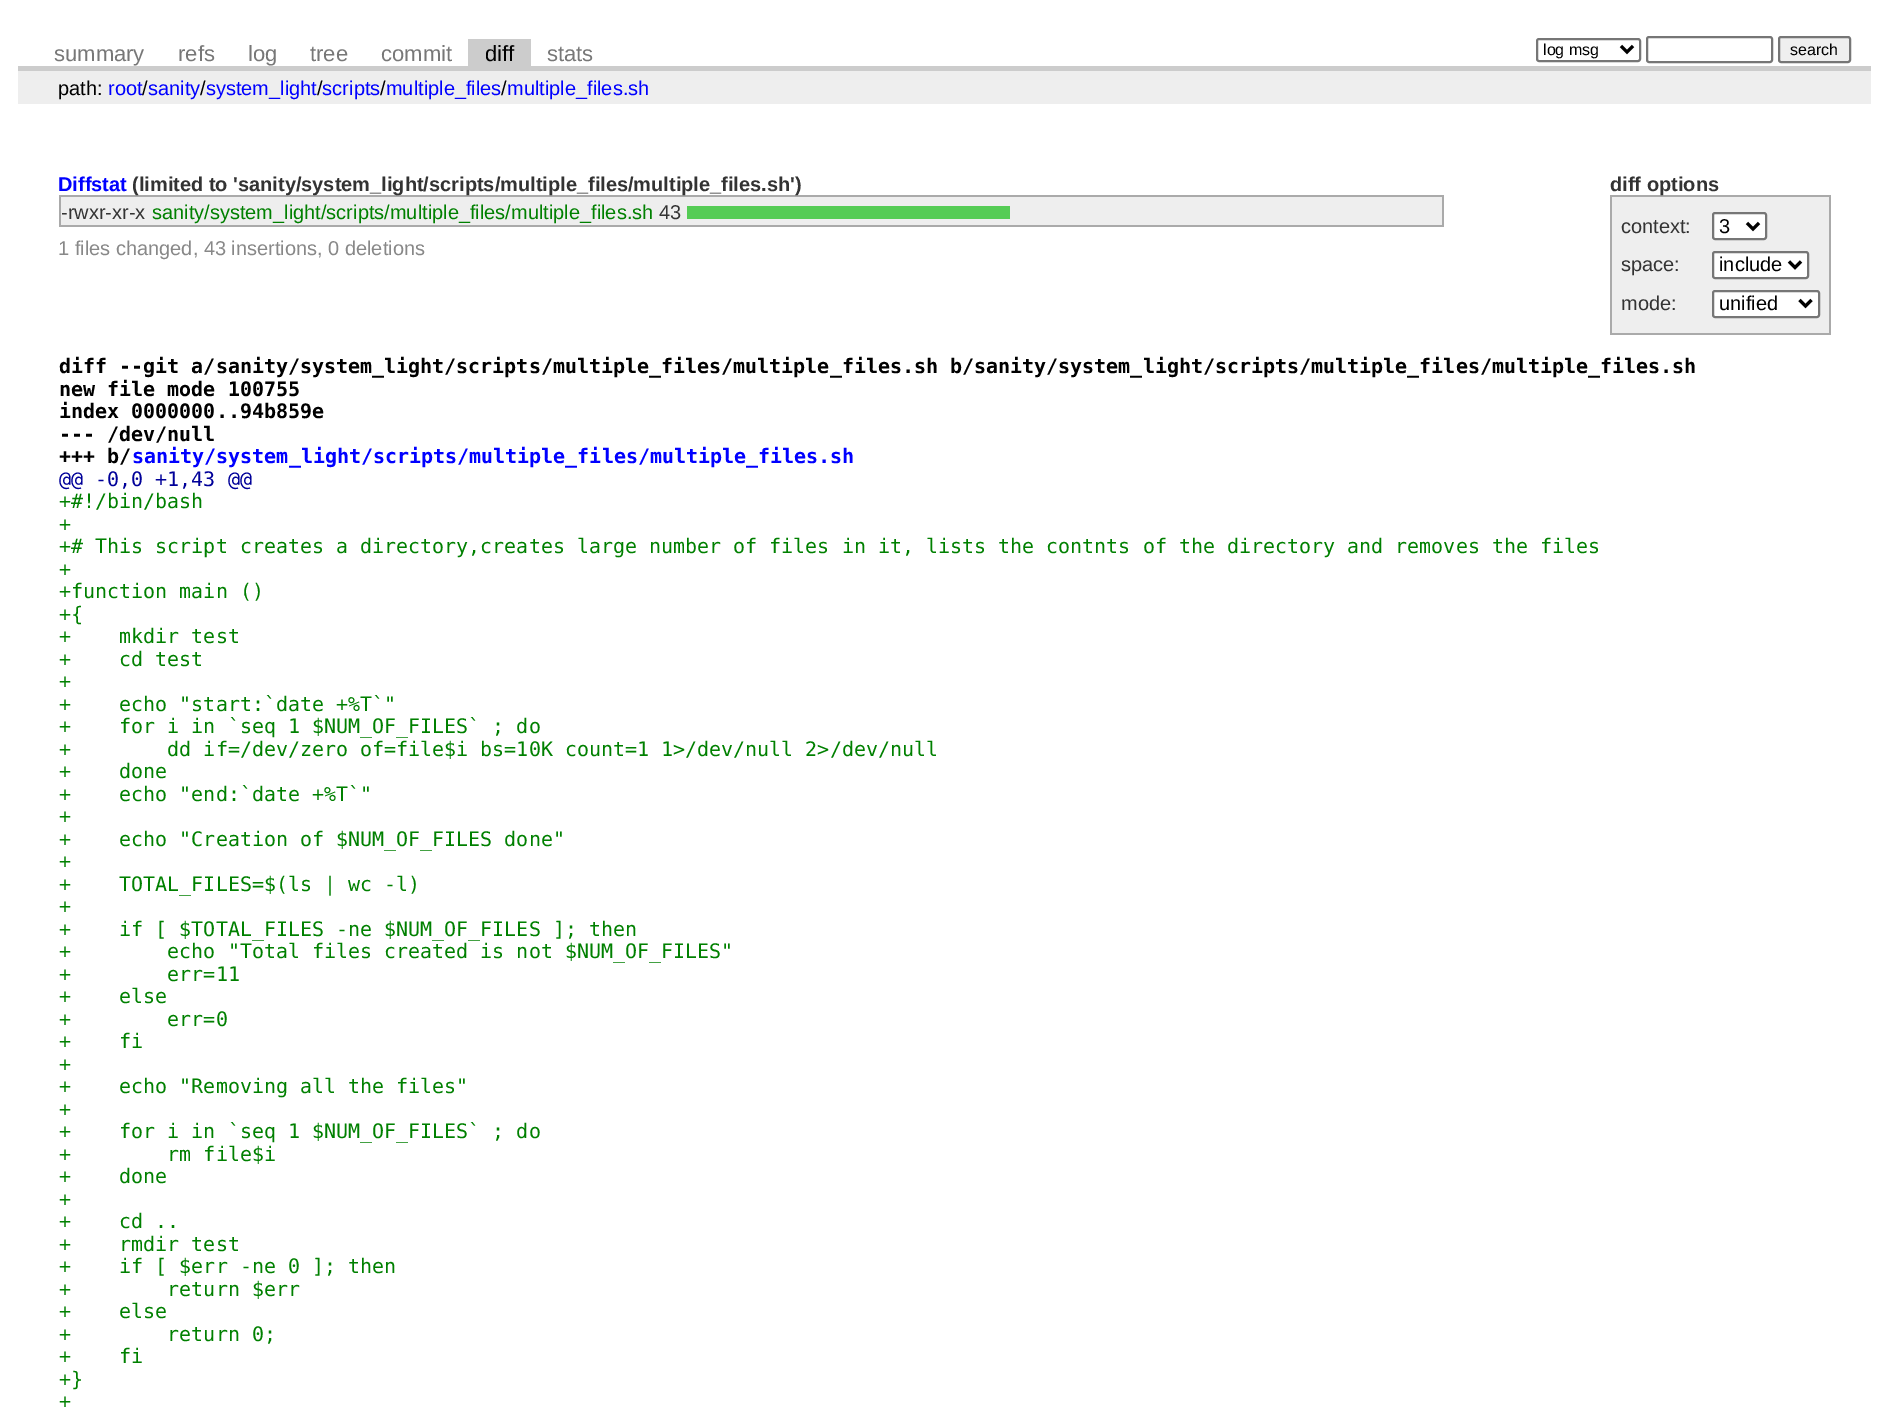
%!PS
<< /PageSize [1888 1408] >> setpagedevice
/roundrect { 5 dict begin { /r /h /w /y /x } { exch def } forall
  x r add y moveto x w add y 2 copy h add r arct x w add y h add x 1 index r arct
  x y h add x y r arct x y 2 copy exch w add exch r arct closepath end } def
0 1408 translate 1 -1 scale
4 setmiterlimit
1 setgray
0 0 1888 1408 rectfill
0.8 setgray
18 66 1853 5 rectfill
/LiberationSans-Regular [22 0 0 -22 0 0] selectfont
0.467 setgray
54 61 moveto (summary) show
178 61 moveto (refs) show
248 61 moveto (log) show
310 61 moveto (tree) show
381 61 moveto (commit) show
0.8 setgray
468 39 63 27 rectfill
0 setgray
485 61 moveto (diff) show
0.467 setgray
547 61 moveto (stats) show
0.463 setgray
2 setlinewidth
1537 39 103 22 2 roundrect stroke
0 setgray
3 setlinewidth
newpath 1621 46 moveto 1627 52 lineto 1633 46 lineto stroke
gsave
1544 39 72 21 rectclip
/LiberationSans-Regular [16 0 0 -16 0 0] selectfont
1543 55 moveto (log msg) show
grestore
0.463 setgray
2 setlinewidth
1647 37 125 25 2 roundrect stroke
0.937 setgray
1779 37 71 25 2 roundrect gsave fill grestore
0.463 setgray
stroke
/LiberationSans-Regular [16 0 0 -16 0 0] selectfont
0 setgray
1790 55 moveto (search) show
0.933 setgray
18 71 1853 33 rectfill
/LiberationSans-Regular [20 0 0 -20 0 0] selectfont
0 setgray
58 95 moveto (path:) show
0 0 1 setrgbcolor
108 95 moveto (root sanity system_light scripts multiple_files multiple_files.sh) show
0 setgray
142 95 moveto (/) show
200 95 moveto (/) show
317 95 moveto (/) show
380 95 moveto (/) show
501 95 moveto (/) show
/LiberationSans-Bold [20 0 0 -20 0 0] selectfont
0 0 1 setrgbcolor
58 191 moveto (Diffstat) show
0.667 setgray
59 195 1384 2 rectfill
0.2 setgray
132 191 moveto (\(limited to 'sanity/system_light/scripts/multiple_files/multiple_files.sh'\)) show
0.667 setgray
1610 195 220 2 rectfill
1829 195 2 140 rectfill
1610 333 220 2 rectfill
1610 195 2 140 rectfill
0.2 setgray
1610 191 moveto (diff options) show
0.933 setgray
1612 197 217 136 rectfill
/LiberationSans-Regular [20 0 0 -20 0 0] selectfont
0.2 setgray
1621 233 moveto (context:) show
1 setgray
1713 213 53 26 2 roundrect gsave fill grestore
0.463 setgray
stroke
0 setgray
3 setlinewidth
newpath 1747 223 moveto 1753 229 lineto 1759 223 lineto stroke
1719 233 moveto (3) show
0.2 setgray
1621 271 moveto (space:) show
1 setgray
1713 252 95 26 2 roundrect gsave fill grestore
0.463 setgray
2 setlinewidth
stroke
0 setgray
3 setlinewidth
newpath 1789 261.5 moveto 1795 267.5 lineto 1801 261.5 lineto stroke
1719 271 moveto (include) show
0.2 setgray
1621 310 moveto (mode:) show
1 setgray
1713 291 106 26 2 roundrect gsave fill grestore
0.463 setgray
2 setlinewidth
stroke
0 setgray
3 setlinewidth
newpath 1799.5 300 moveto 1805.5 306 lineto 1811.5 300 lineto stroke
1719 310 moveto (unified) show
0.933 setgray
61 197 1381 28 rectfill
0.667 setgray
1442 195 2 32 rectfill
59 225 1384 2 rectfill
59 195 2 32 rectfill
0.2 setgray
61 219 moveto (-rwxr-xr-x) show
0 0.502 0 setrgbcolor
152 219 moveto (sanity/system_light/scripts/multiple_files/multiple_files.sh) show
0.2 setgray
659 219 moveto (43) show
0.333 0.8 0.333 setrgbcolor
687 206 323 13 rectfill
0.533 setgray
58 255 moveto (1 files changed, 43 insertions, 0 deletions) show
/DejaVuSansMono-Bold [20 0 0 -20 0 0] selectfont
0 setgray
59 373 moveto (diff --git a/sanity/system_light/scripts/multiple_files/multiple_files.sh b/sanity/system_light/scripts/multiple_files/multiple_files.sh) show
59 396 moveto (new file mode 100755) show
59 418 moveto (index 0000000..94b859e) show
59 441 moveto (--- /dev/null) show
59 463 moveto (+++ b/) show
0 0 1 setrgbcolor
132 463 moveto (sanity/system_light/scripts/multiple_files/multiple_files.sh) show
/DejaVuSansMono-Regular [20 0 0 -20 0 0] selectfont
0 0 0.6 setrgbcolor
59 486 moveto (@@ -0,0 +1,43 @@) show
0 0.502 0 setrgbcolor
59 508 moveto (+#!/bin/bash) show
59 531 moveto (+) show
59 553 moveto (+# This script creates a directory,creates large number of files in it, lists the contnts of the directory and removes the files) show
59 576 moveto (+) show
59 598 moveto (+function main \(\)) show
59 621 moveto (+{) show
59 643 moveto (+    mkdir test) show
59 666 moveto (+    cd test) show
59 688 moveto (+) show
59 711 moveto (+    echo "start:`date +%T`") show
59 733 moveto (+    for i in `seq 1 $NUM_OF_FILES` ; do) show
59 756 moveto (+        dd if=/dev/zero of=file$i bs=10K count=1 1>/dev/null 2>/dev/null) show
59 778 moveto (+    done) show
59 801 moveto (+    echo "end:`date +%T`") show
59 823 moveto (+) show
59 846 moveto (+    echo "Creation of $NUM_OF_FILES done") show
59 868 moveto (+) show
59 891 moveto (+    TOTAL_FILES=$\(ls | wc -l\)) show
59 913 moveto (+) show
59 936 moveto (+    if [ $TOTAL_FILES -ne $NUM_OF_FILES ]; then) show
59 958 moveto (+        echo "Total files created is not $NUM_OF_FILES") show
59 981 moveto (+        err=11) show
59 1003 moveto (+    else) show
59 1026 moveto (+        err=0) show
59 1048 moveto (+    fi) show
59 1071 moveto (+) show
59 1093 moveto (+    echo "Removing all the files") show
59 1116 moveto (+) show
59 1138 moveto (+    for i in `seq 1 $NUM_OF_FILES` ; do) show
59 1161 moveto (+        rm file$i) show
59 1183 moveto (+    done) show
59 1206 moveto (+) show
59 1228 moveto (+    cd ..) show
59 1251 moveto (+    rmdir test) show
59 1273 moveto (+    if [ $err -ne 0 ]; then) show
59 1296 moveto (+        return $err) show
59 1318 moveto (+    else) show
59 1341 moveto (+        return 0;) show
59 1363 moveto (+    fi) show
59 1386 moveto (+}) show
59 1408 moveto (+) show
showpage
